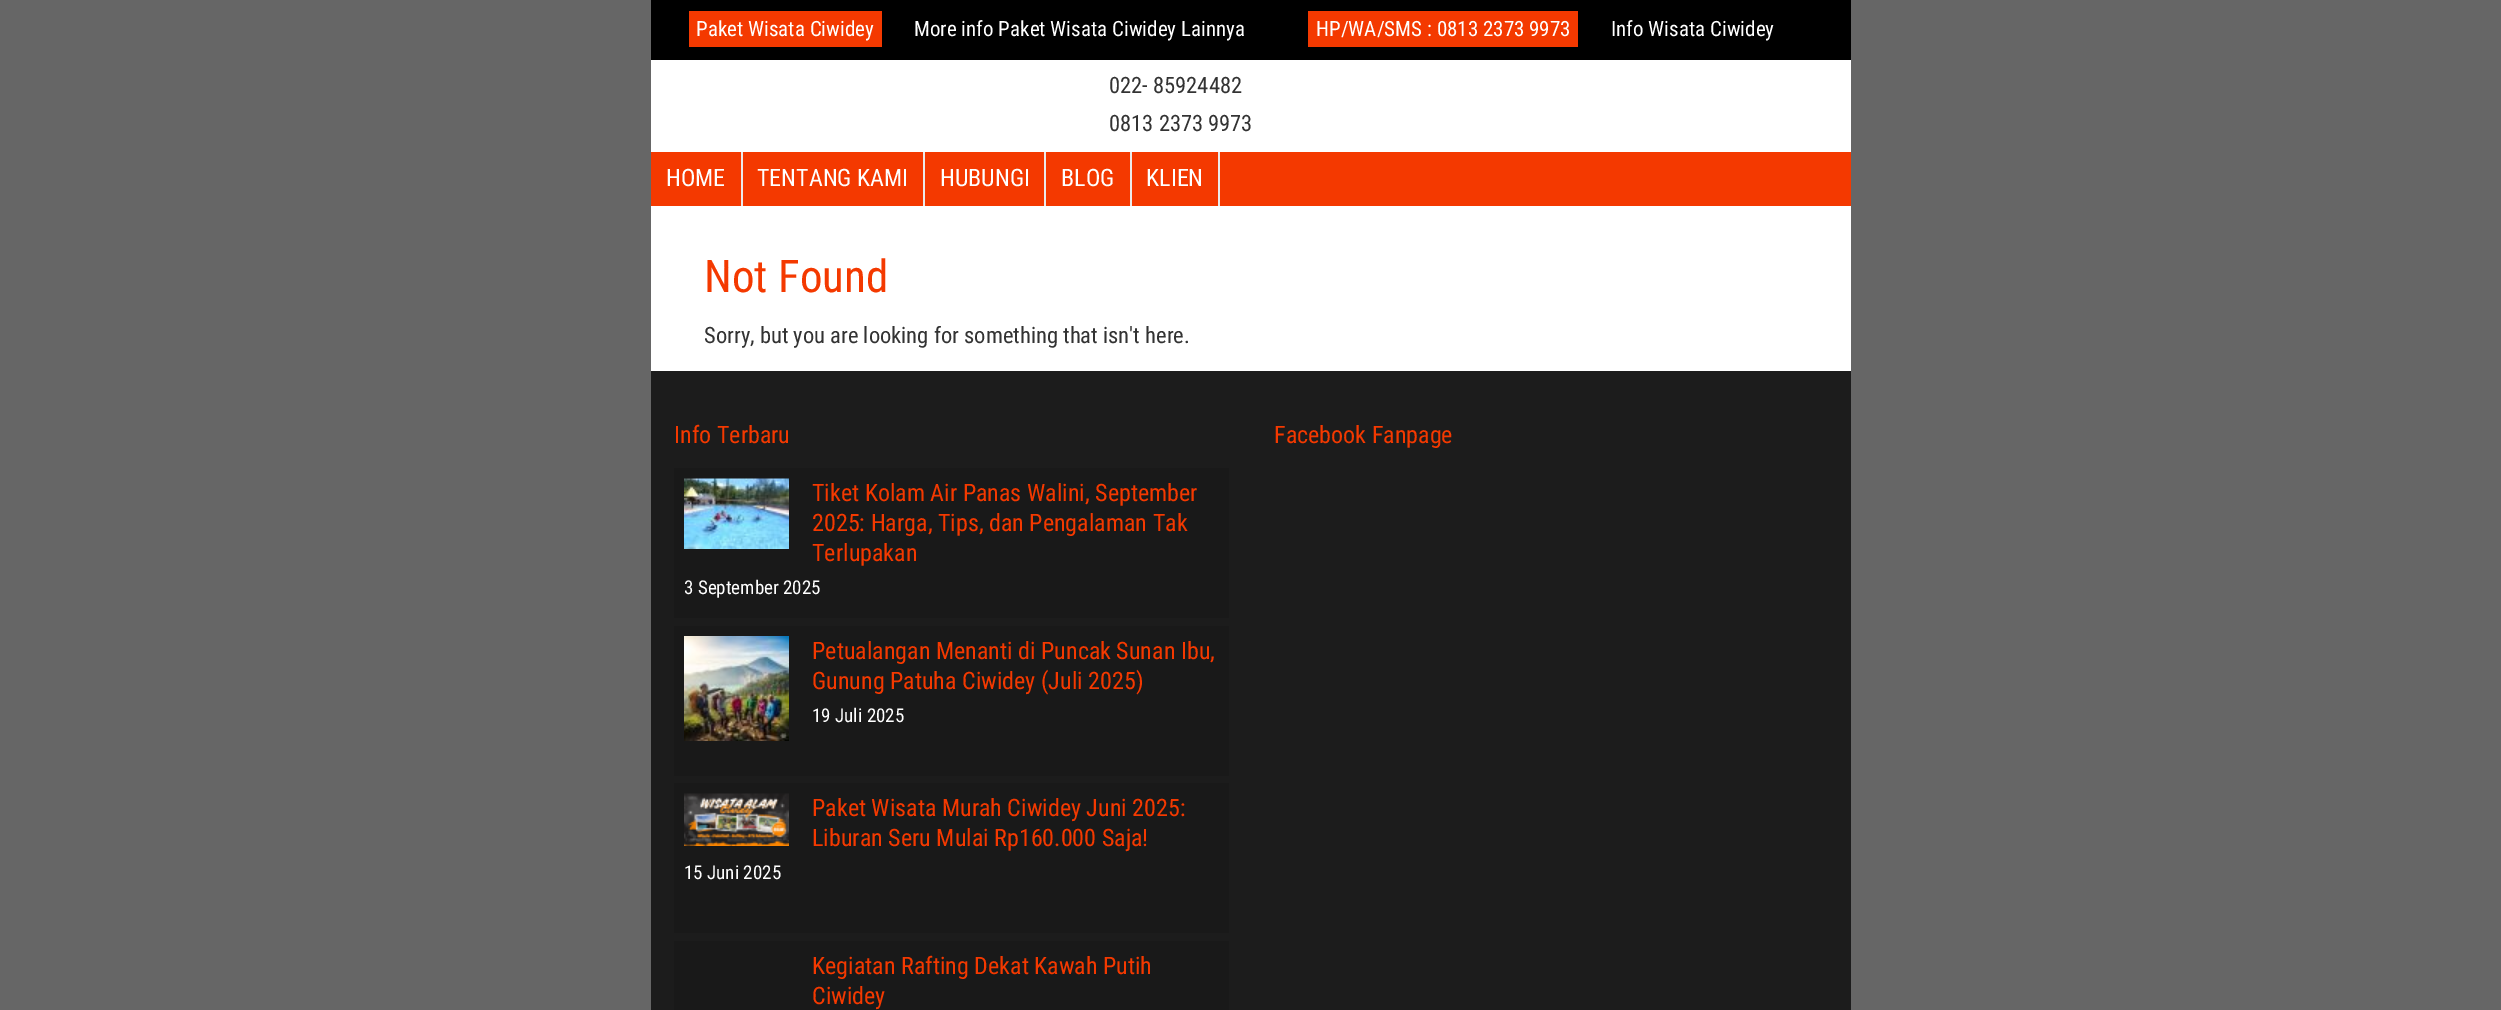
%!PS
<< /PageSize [2501 1010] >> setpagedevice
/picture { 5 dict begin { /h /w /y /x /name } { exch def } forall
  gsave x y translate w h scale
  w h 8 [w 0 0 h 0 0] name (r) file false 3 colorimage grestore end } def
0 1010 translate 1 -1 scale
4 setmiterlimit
0.4 setgray
0 0 2501 1010 rectfill
1 setgray
651 60 1200 311 rectfill
0 setgray
651 0 1200 60 rectfill
0.957 0.224 0 setrgbcolor
689 11 193 36 rectfill
/RobotoCondensed-Regular [21 0 0 -21 0 0] selectfont
1 setgray
696 36 moveto (Paket Wisata Ciwidey) show
914 36 moveto (More info Paket Wisata Ciwidey Lainnya) show
0.957 0.224 0 setrgbcolor
1308 11 270 36 rectfill
1 setgray
1316 36 moveto (HP/WA/SMS : 0813 2373 9973) show
1611 36 moveto (Info Wisata Ciwidey) show
/RobotoCondensed-Regular [22.5 0 0 -22.5 0 0] selectfont
0.2 setgray
1109 93 moveto (022- 85924482) show
1109 131 moveto (0813 2373 9973) show
0.957 0.224 0 setrgbcolor
651 152 1200 54 rectfill
0.922 setgray
741 152 2 54 rectfill
/RobotoCondensed-Regular [24 0 0 -24 0 0] selectfont
1 setgray
666 186 moveto (HOME) show
0.922 setgray
923 152 2 54 rectfill
1 setgray
757 186 moveto (TENTANG KAMI) show
0.922 setgray
1044 152 2 54 rectfill
1 setgray
940 186 moveto (HUBUNGI) show
0.922 setgray
1130 152 2 54 rectfill
1 setgray
1061 186 moveto (BLOG) show
0.922 setgray
1218 152 2 54 rectfill
1 setgray
1146 186 moveto (KLIEN) show
/RobotoCondensed-Regular [45 0 0 -45 0 0] selectfont
0.957 0.224 0 setrgbcolor
704 292 moveto (Not Found) show
/RobotoCondensed-Regular [22.5 0 0 -22.5 0 0] selectfont
0.2 setgray
704 343 moveto (Sorry, but you are looking for something that isn't here.) show
0.11 setgray
651 371 1200 639 rectfill
/RobotoCondensed-Regular [24 0 0 -24 0 0] selectfont
0.957 0.224 0 setrgbcolor
674 443 moveto (Info Terbaru) show
0.098 setgray
674 468 555 150 rectfill
(img1.rgb) 684 478 105 71 picture
0.957 0.224 0 setrgbcolor
812 501 moveto (Tiket Kolam Air Panas Walini, September) show
812 531 moveto (2025: Harga, Tips, dan Pengalaman Tak) show
812 561 moveto (Terlupakan) show
/RobotoCondensed-Regular [19 0 0 -19 0 0] selectfont
1 setgray
684 594 moveto (3 September 2025) show
0.098 setgray
674 626 555 150 rectfill
(img2.rgb) 684 636 105 105 picture
/RobotoCondensed-Regular [24 0 0 -24 0 0] selectfont
0.957 0.224 0 setrgbcolor
812 659 moveto (Petualangan Menanti di Puncak Sunan Ibu,) show
812 689 moveto (Gunung Patuha Ciwidey \(Juli 2025\)) show
/RobotoCondensed-Regular [19 0 0 -19 0 0] selectfont
1 setgray
812 722 moveto (19 Juli 2025) show
0.098 setgray
674 783 555 150 rectfill
(img3.rgb) 684 793 105 53 picture
/RobotoCondensed-Regular [24 0 0 -24 0 0] selectfont
0.957 0.224 0 setrgbcolor
812 816 moveto (Paket Wisata Murah Ciwidey Juni 2025:) show
812 846 moveto (Liburan Seru Mulai Rp160.000 Saja!) show
/RobotoCondensed-Regular [19 0 0 -19 0 0] selectfont
1 setgray
684 879 moveto (15 Juni 2025) show
0.098 setgray
674 941 555 69 rectfill
/RobotoCondensed-Regular [24 0 0 -24 0 0] selectfont
0.957 0.224 0 setrgbcolor
812 974 moveto (Kegiatan Rafting Dekat Kawah Putih) show
812 1004 moveto (Ciwidey) show
1274 443 moveto (Facebook Fanpage) show
showpage
